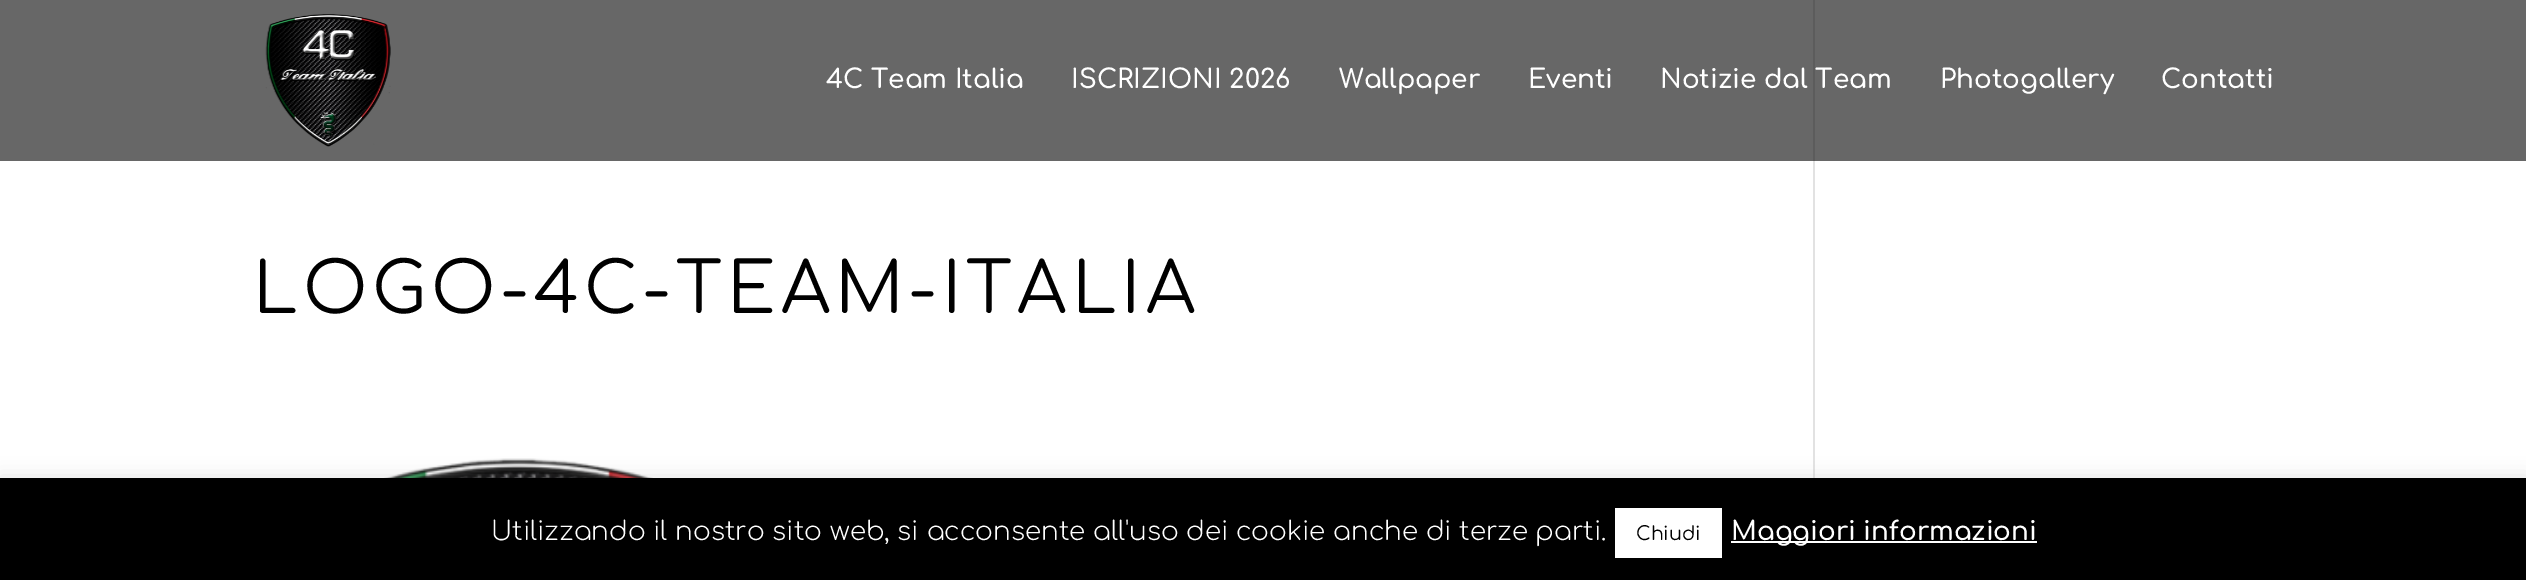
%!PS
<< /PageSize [2526 580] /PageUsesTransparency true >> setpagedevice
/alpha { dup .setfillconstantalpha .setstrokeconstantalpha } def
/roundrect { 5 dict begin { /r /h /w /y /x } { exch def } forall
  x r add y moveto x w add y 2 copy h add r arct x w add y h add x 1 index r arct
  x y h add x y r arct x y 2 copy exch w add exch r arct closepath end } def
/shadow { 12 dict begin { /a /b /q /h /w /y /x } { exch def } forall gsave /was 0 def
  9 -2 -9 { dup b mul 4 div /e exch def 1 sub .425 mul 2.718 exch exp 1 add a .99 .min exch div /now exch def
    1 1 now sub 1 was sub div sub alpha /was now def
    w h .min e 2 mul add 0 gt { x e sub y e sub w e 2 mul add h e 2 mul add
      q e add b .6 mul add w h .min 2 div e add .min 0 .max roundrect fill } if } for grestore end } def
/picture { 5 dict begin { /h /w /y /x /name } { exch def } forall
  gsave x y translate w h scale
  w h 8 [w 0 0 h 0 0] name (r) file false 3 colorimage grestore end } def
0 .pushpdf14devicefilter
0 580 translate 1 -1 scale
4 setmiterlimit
1 setgray
0 0 2526 580 rectfill
0.404 setgray
0 0 2526 161 rectfill
(img1.rgb) 265 14 126 133 picture
/Comfortaa-SemiBold [26.25 0 0 -26.25 0 0] selectfont
1 setgray
826 88 moveto (4C Team Italia) show
1071 88 moveto (ISCRIZIONI 2026) show
1339 88 moveto (Wallpaper) show
1528 88 moveto (Eventi) show
0.361 setgray
1813 0 2 161 rectfill
1 setgray
1660 88 moveto (Notizie dal Team) show
1940 88 moveto (Photogallery) show
2161 88 moveto (Contatti) show
/Comfortaa-Regular [70 0 0 -70 0 0] selectfont
0 setgray
253 313 moveto 5.25 0 (LOGO-4C-TEAM-ITALIA) ashow
(img2.rgb) 384 458 269 20 picture
0.886 setgray
1813 161 2 317 rectfill
0.675 0.671 0.671 setrgbcolor
0 476 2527 103 0 9 0.3 shadow
0 setgray
0 478 2526 102 rectfill
/Comfortaa-Light [26.25 0 0 -26.25 0 0] selectfont
1 setgray
491 540 moveto (Utilizzando il nostro sito web, si acconsente all'uso dei cookie anche di terze parti.) show
1615 508 107 50 rectfill
/Comfortaa-Regular [19 0 0 -19 0 0] selectfont
0 setgray
1636 540 moveto (Chiudi) show
1 setgray
1731 541 306 2 rectfill
/Comfortaa-SemiBold [26.25 0 0 -26.25 0 0] selectfont
1731 540 moveto (Maggiori informazioni) show
.poppdf14devicefilter showpage
